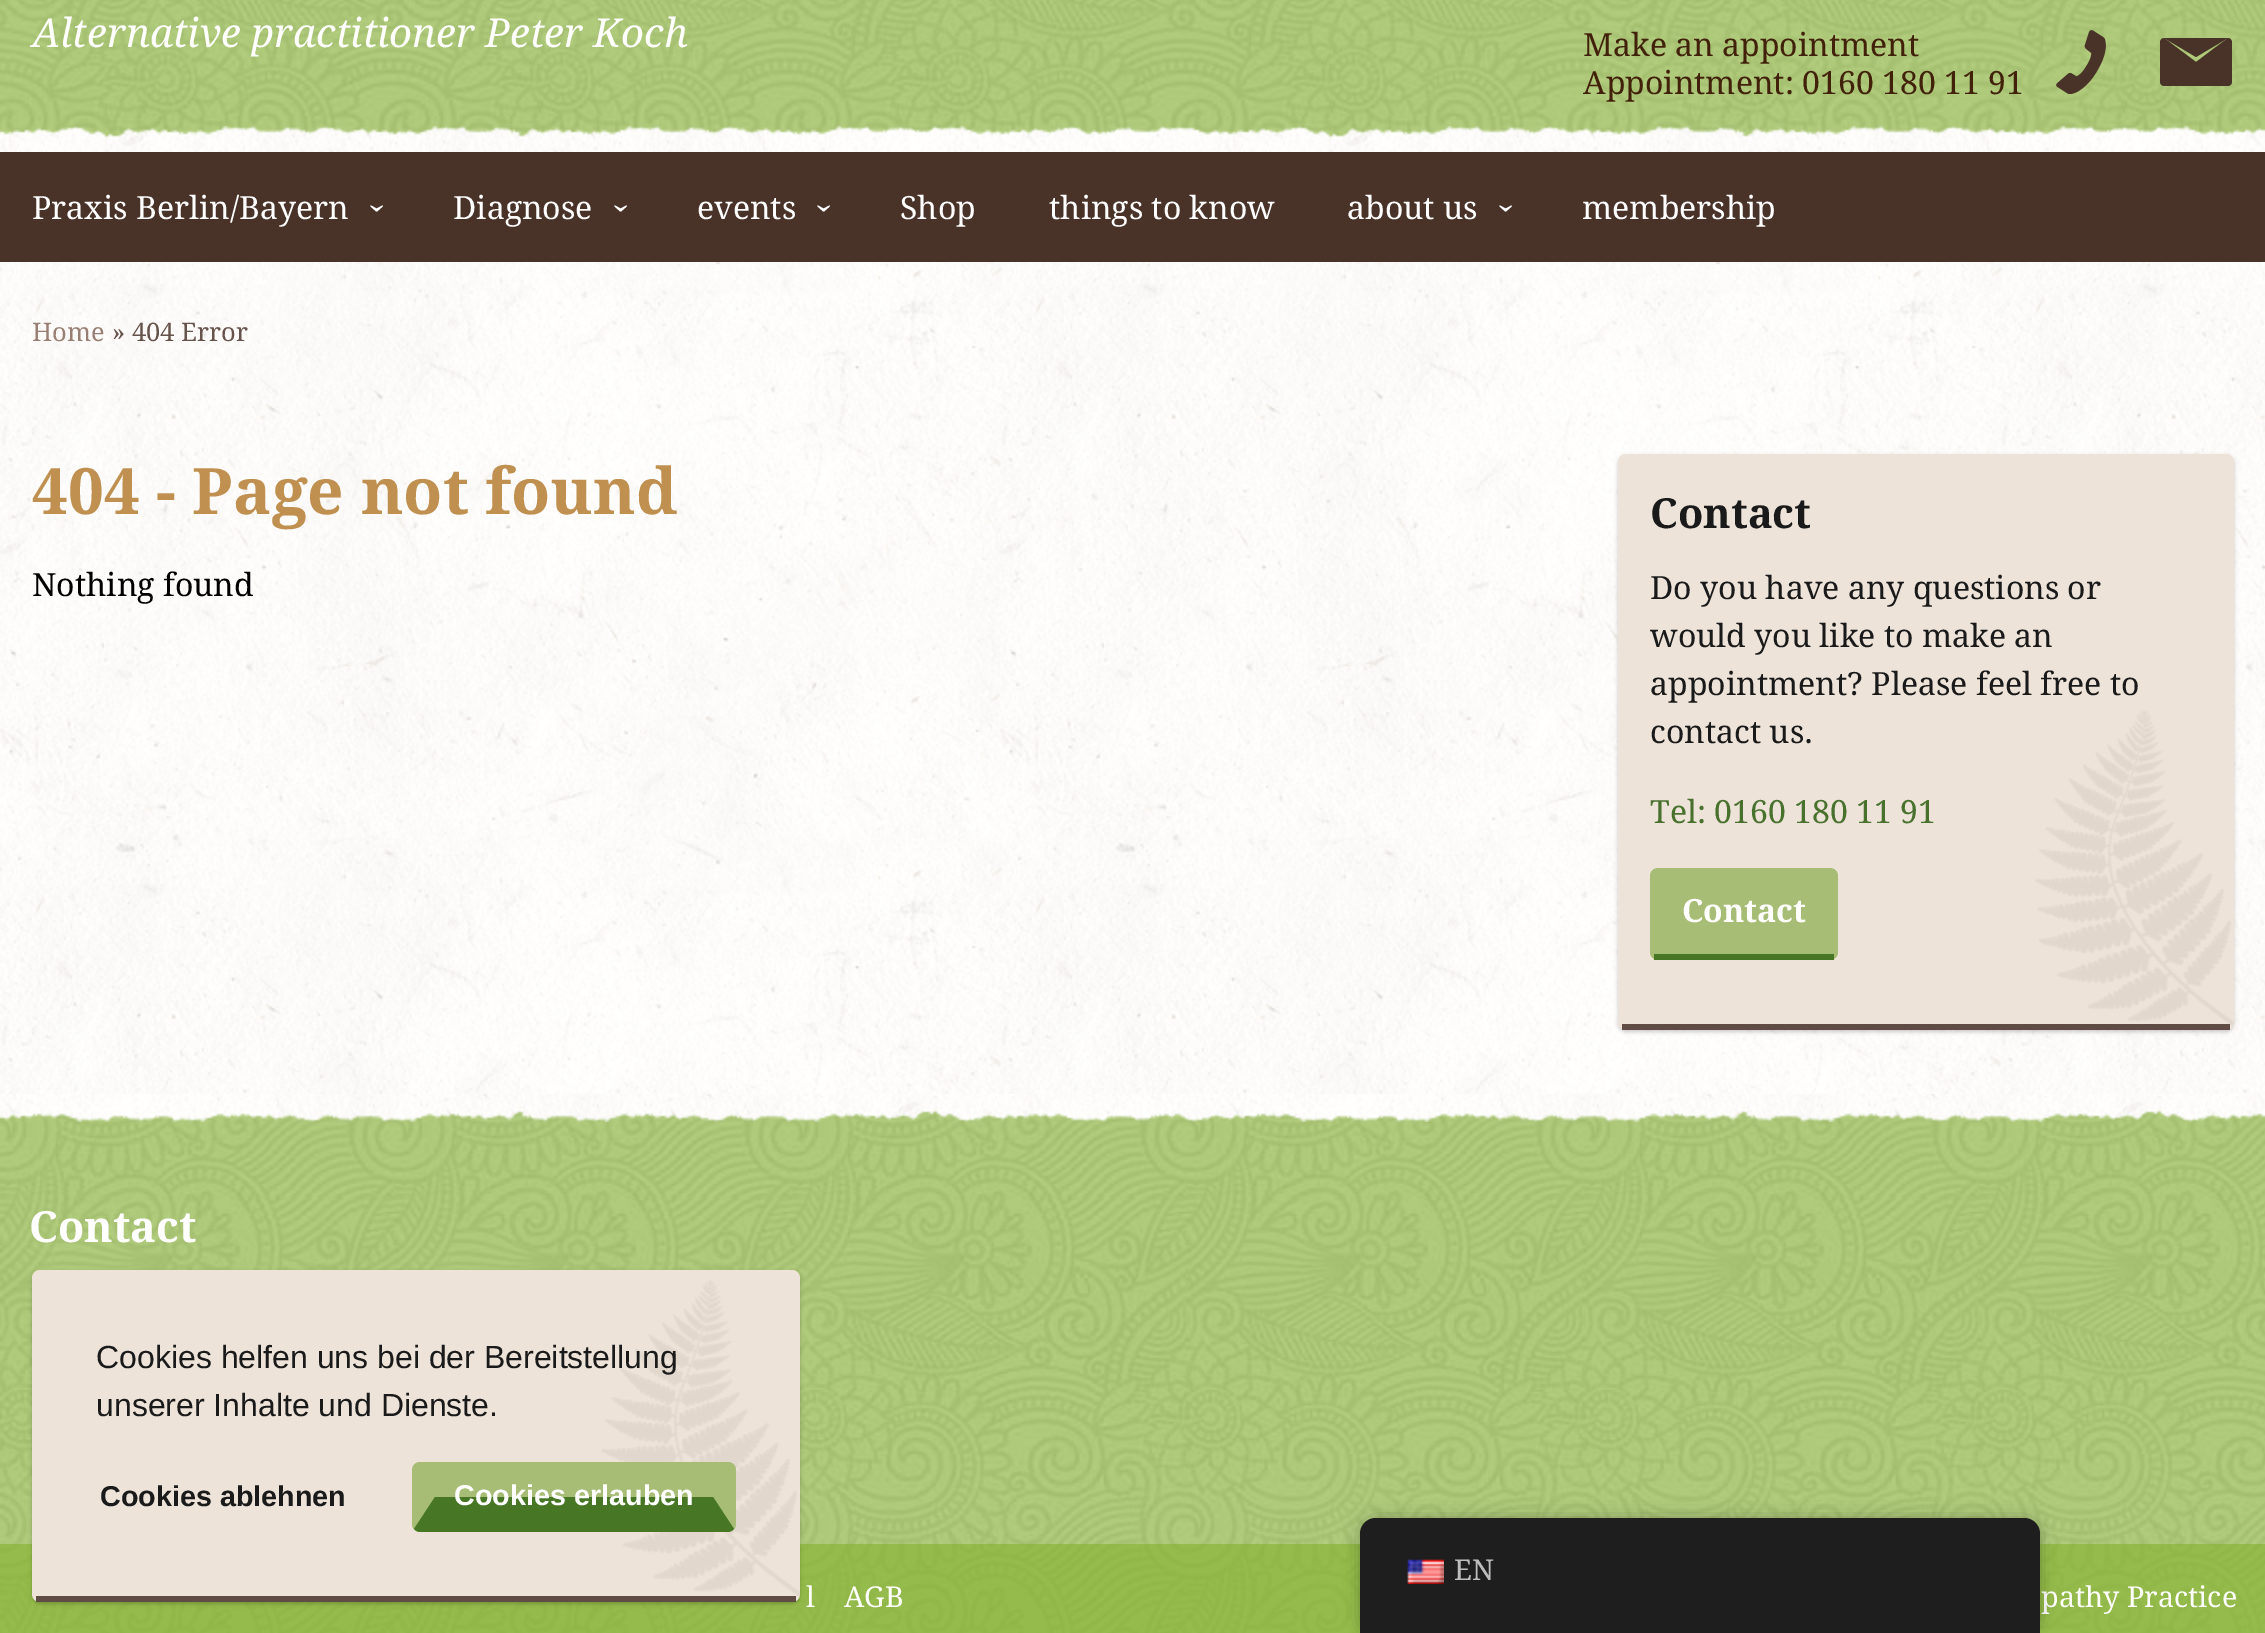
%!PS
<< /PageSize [2265 1633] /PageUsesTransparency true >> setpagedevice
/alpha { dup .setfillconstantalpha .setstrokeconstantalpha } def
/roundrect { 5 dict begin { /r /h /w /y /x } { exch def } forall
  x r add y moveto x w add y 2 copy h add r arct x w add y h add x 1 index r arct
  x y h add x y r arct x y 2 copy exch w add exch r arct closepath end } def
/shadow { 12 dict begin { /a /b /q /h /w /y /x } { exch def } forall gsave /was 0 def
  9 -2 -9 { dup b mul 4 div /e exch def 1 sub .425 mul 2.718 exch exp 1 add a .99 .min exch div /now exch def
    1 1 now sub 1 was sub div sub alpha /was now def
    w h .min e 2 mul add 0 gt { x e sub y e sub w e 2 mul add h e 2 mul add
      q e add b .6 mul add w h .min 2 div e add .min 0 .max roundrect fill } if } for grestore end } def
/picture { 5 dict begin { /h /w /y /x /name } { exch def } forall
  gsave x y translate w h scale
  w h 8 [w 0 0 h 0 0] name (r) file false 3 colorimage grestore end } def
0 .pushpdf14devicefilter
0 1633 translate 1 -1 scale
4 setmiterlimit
1 setgray
0 0 2265 1633 rectfill
(img1.rgb) 0 0 2265 139 picture
/DroidSerif-Italic [40 0 0 -40 0 0] selectfont
32 47 moveto (Alternative practitioner Peter Koch) show
/DroidSerif-Regular [32 0 0 -32 0 0] selectfont
0.259 0.129 0.043 setrgbcolor
1583 56 moveto (Make an appointment) show
(img2.rgb) 2056 30 50 64 picture
1583 94 moveto (Appointment: 0160 180 11 91) show
0.286 0.2 0.157 setrgbcolor
newpath 2228 38 moveto 2196 62 lineto 2164 38 lineto 2162 38 2160 40 2160 42 curveto 2160 82 lineto 2160 84 2162 86 2164 86 curveto 2228 86 lineto 2230 86 2232 84 2232 82 curveto 2232 42 lineto 2232 40 2230 38 2228 38 curveto closepath fill
newpath 2228 38 moveto 2164 38 lineto 2196 57 lineto closepath fill
0 152 2265 110 rectfill
(img3.rgb) 0 126 2265 26 picture
1 setgray
32 219 moveto (Praxis Berlin/Bayern) show
gsave 368 203 translate 90 rotate 0 0 moveto (›) show grestore
453 219 moveto (Diagnose) show
gsave 612 203 translate 90 rotate 0 0 moveto (›) show grestore
697 219 moveto (events) show
gsave 815 203 translate 90 rotate 0 0 moveto (›) show grestore
900 219 moveto (Shop) show
1049 219 moveto (things to know) show
1347 219 moveto (about us) show
gsave 1497 203 translate 90 rotate 0 0 moveto (›) show grestore
1582 219 moveto (membership) show
(img4.rgb) 0 262 2265 832 picture
/DroidSerif-Regular [25.5 0 0 -25.5 0 0] selectfont
0.6 0.498 0.451 setrgbcolor
32 341 moveto (Home) show
0.4 0.325 0.294 setrgbcolor
112 341 moveto (» 404 Error) show
/DroidSerif-Bold [64 0 0 -64 0 0] selectfont
0.753 0.565 0.314 setrgbcolor
32 514 moveto (404 - Page not found) show
/DroidSerif-Regular [32 0 0 -32 0 0] selectfont
0 setgray
32 596 moveto (Nothing found) show
1618 456 616 576 8 2 0.2 shadow
0.929 0.89 0.847 setrgbcolor
1618 454 616 576 8 roundrect fill
(img5.rgb) 2035 710 199 316 picture
0.376 0.298 0.271 setrgbcolor
1622 1024 608 6 rectfill
/DroidSerif-Bold [41.5 0 0 -41.5 0 0] selectfont
0.102 setgray
1650 528 moveto (Contact) show
/DroidSerif-Regular [32 0 0 -32 0 0] selectfont
1650 599 moveto (Do you have any questions or) show
1650 647 moveto (would you like to make an) show
1650 695 moveto (appointment? Please feel free to) show
1650 743 moveto (contact us.) show
0.282 0.443 0.176 setrgbcolor
1650 823 moveto (Tel: 0160 180 11 91) show
0.655 0.741 0.459 setrgbcolor
1650 868 188 92 8 roundrect fill
0.278 0.467 0.145 setrgbcolor
1654 954 180 6 rectfill
/DroidSerif-Bold [32 0 0 -32 0 0] selectfont
1 setgray
1682 922 moveto (Contact) show
(img7.rgb) 0 1109 2265 524 picture
(img6.rgb) 0 1094 2265 28 picture
/DroidSerif-Bold [43 0 0 -43 0 0] selectfont
29 1242 moveto (Contact) show
0.6 alpha
0.514 0.694 0.173 setrgbcolor
0 1544 2265 89 rectfill
/DroidSerif-Regular [28.75 0 0 -28.75 0 0] selectfont
1 alpha
1 setgray
806 1607 moveto (l) show
844 1607 moveto (AGB) show
2041 1607 moveto (pathy Practice) show
0 setgray
32 1272 768 332 8 2 0.2 shadow
0.929 0.89 0.847 setrgbcolor
32 1270 768 332 8 roundrect fill
(img8.rgb) 601 1280 199 316 picture
0.376 0.298 0.271 setrgbcolor
36 1596 760 6 rectfill
/LiberationSans-Regular [32 0 0 -32 0 0] selectfont
0.102 setgray
96 1368 moveto (Cookies helfen uns bei der Bereitstellung) show
96 1416 moveto (unserer Inhalte und Dienste.) show
/LiberationSans-Bold [28.75 0 0 -28.75 0 0] selectfont
100 1506 moveto (Cookies ablehnen) show
0.655 0.741 0.459 setrgbcolor
412 1462 324 70 8 roundrect fill
0.278 0.467 0.145 setrgbcolor
newpath 734 1529 moveto 713 1497 lineto 435 1497 lineto 414 1529 lineto 416 1531 418 1532 420 1532 curveto 728 1532 lineto 730 1532 732 1531 734 1529 curveto closepath fill
1 setgray
454 1505 moveto (Cookies erlauben) show
0 setgray
1360 1518 680 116 16 8 0.25 shadow
0.118 setgray
newpath 1376 1518 moveto 2024 1518 lineto 2033 1518 2040 1525 2040 1534 curveto 2040 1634 lineto 1360 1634 lineto 1360 1534 lineto 1360 1525 1367 1518 1376 1518 curveto closepath fill
(img9.rgb) 1407 1559 37 25 picture
/DroidSerif-Regular [28.75 0 0 -28.75 0 0] selectfont
0.741 setgray
1454 1580 moveto (EN) show
.poppdf14devicefilter showpage
